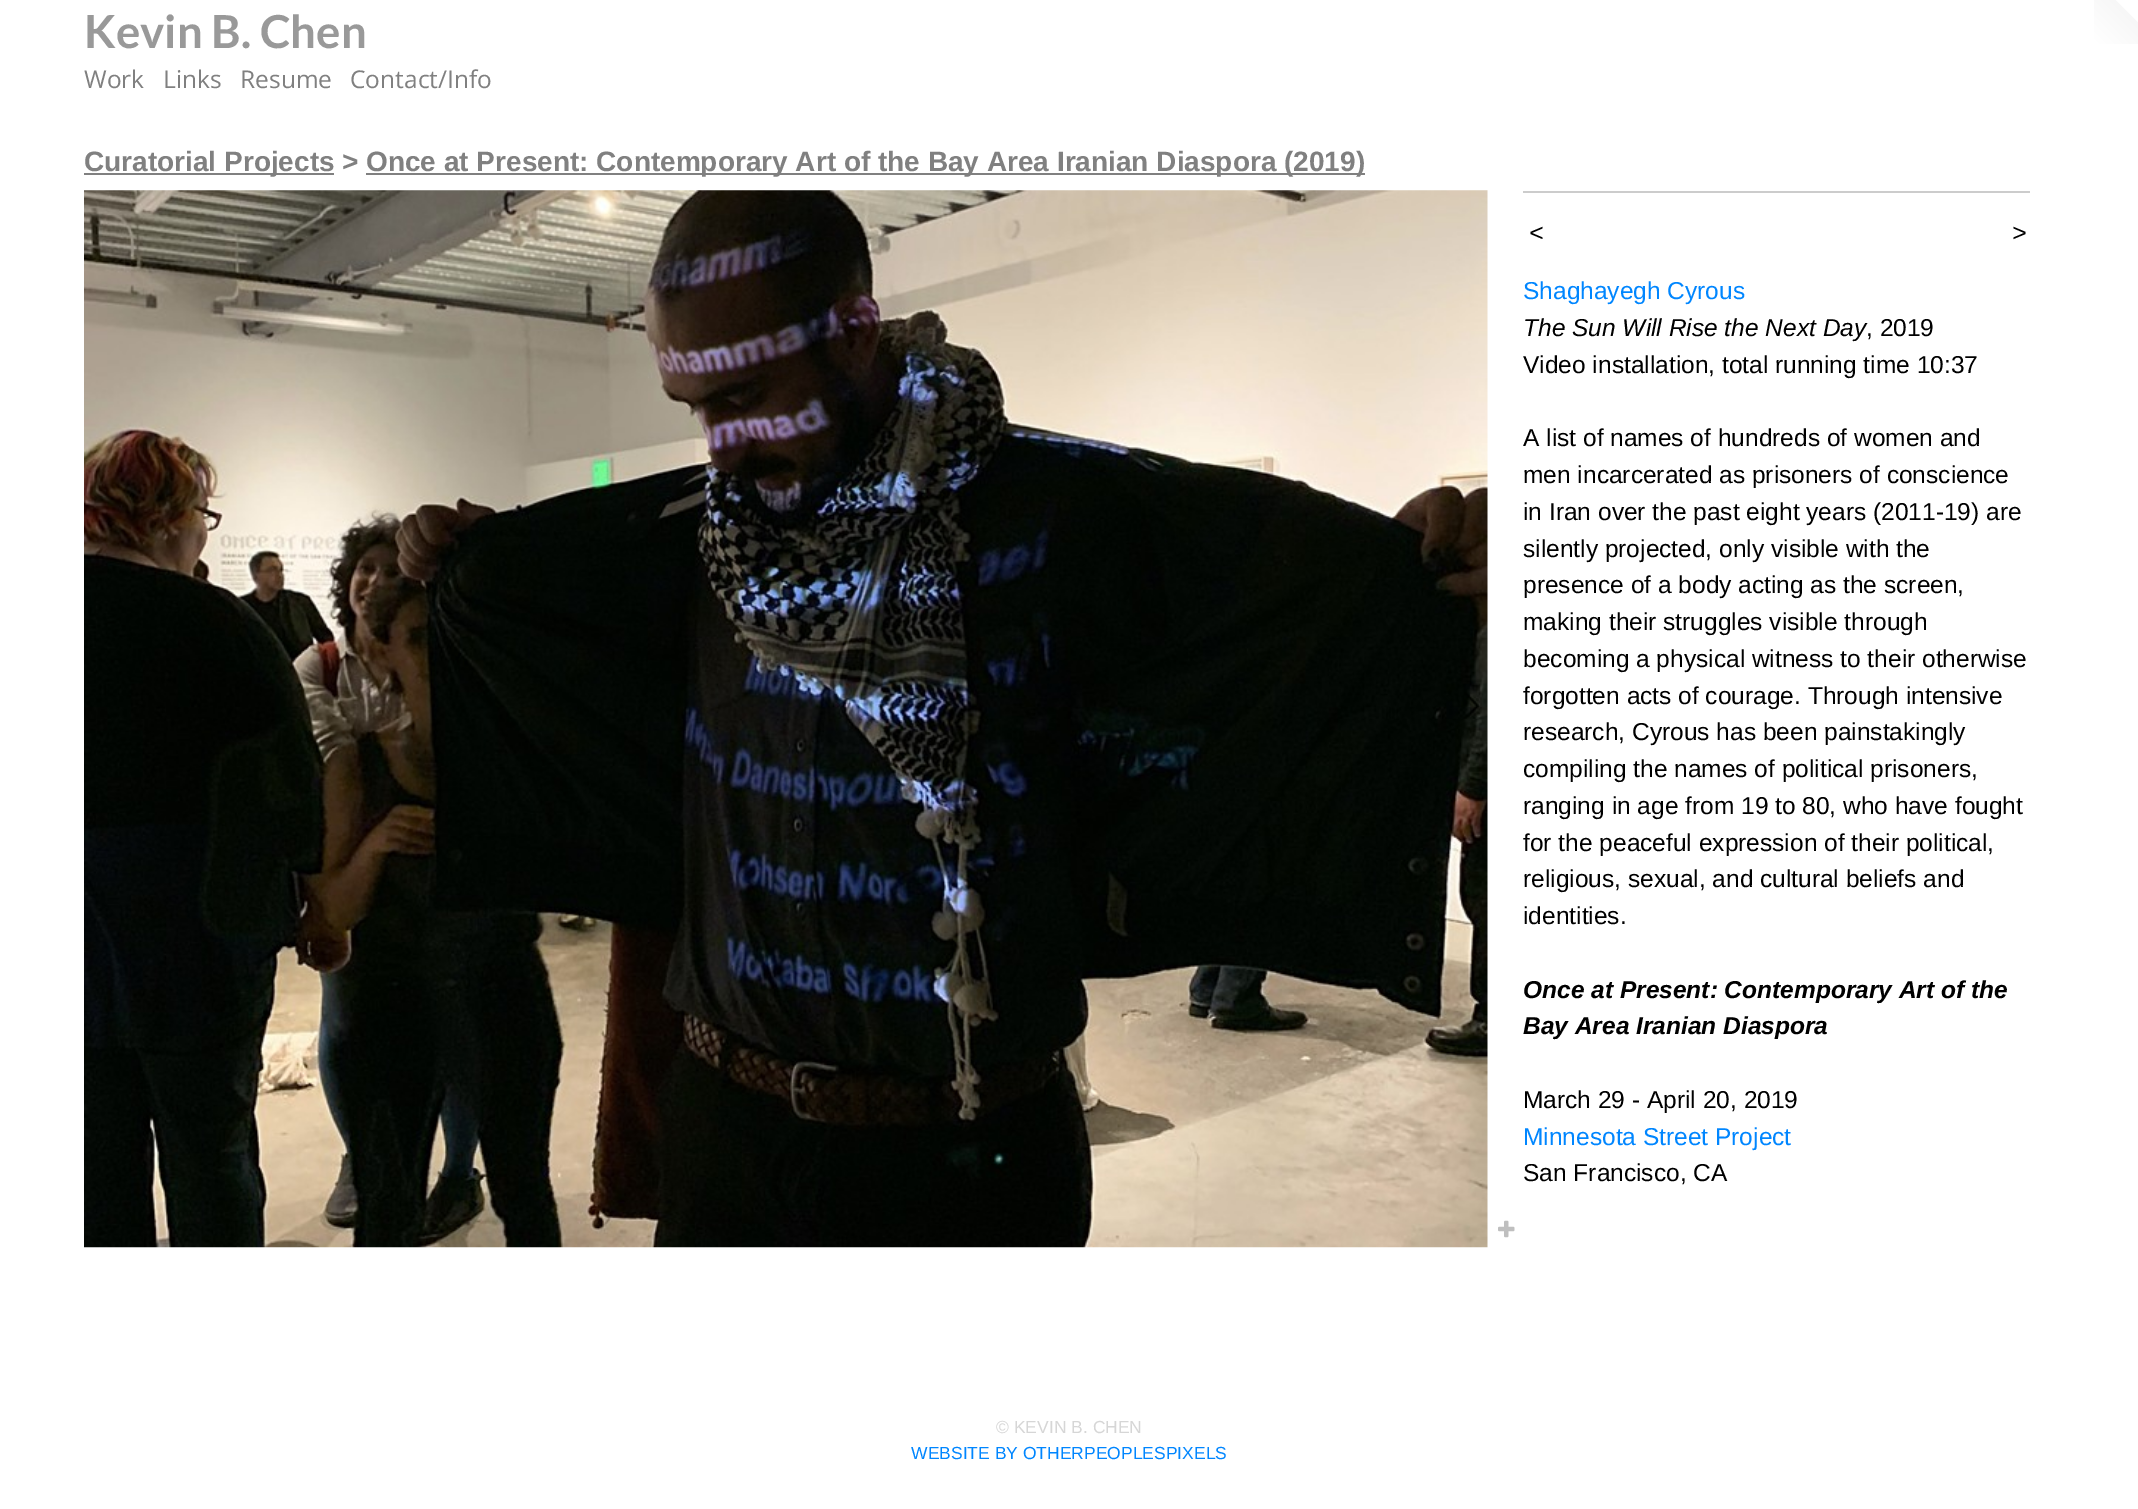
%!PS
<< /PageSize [2138 1509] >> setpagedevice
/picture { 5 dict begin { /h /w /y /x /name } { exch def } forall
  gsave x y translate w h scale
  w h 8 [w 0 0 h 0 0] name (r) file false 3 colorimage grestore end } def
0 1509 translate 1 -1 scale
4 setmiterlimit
1 setgray
0 0 2138 1509 rectfill
/Lato-Bold [45.5 0 0 -45.5 0 0] selectfont
0.6 setgray
84 48 moveto (Kevin B. Chen) show
(img1.rgb) 2094 0 44 44 picture
/OpenSans-Regular [24.5 0 0 -24.5 0 0] selectfont
0.502 setgray
84 88 moveto (Work) show
163 88 moveto (Links) show
240 88 moveto (Resume) show
350 88 moveto (Contact/Info) show
84 173 250 2 rectfill
/LiberationSans-Bold [28 0 0 -28 0 0] selectfont
84 171 moveto (Curatorial Projects >) show
366 173 999 2 rectfill
366 171 moveto (Once at Present: Contemporary Art of the Bay Area Iranian Diaspora \(2019\)) show
(img2.rgb) 84 190 1404 1058 picture
(img3.rgb) 1498 1220 17 18 picture
0.8 setgray
1523 191 507 2 rectfill
/LiberationSans-Italic [24.5 0 0 -24.5 0 0] selectfont
0 setgray
1529 241 moveto 2 0 (<) ashow
2012 241 moveto 2 0 (>) ashow
/LiberationSans-Regular [24.5 0 0 -24.5 0 0] selectfont
0 0.525 1 setrgbcolor
1523 299 moveto (Shaghayegh Cyrous) show
/LiberationSans-Italic [24.5 0 0 -24.5 0 0] selectfont
0 setgray
1523 336 moveto (The Sun Will Rise the Next Day) show
/LiberationSans-Regular [24.5 0 0 -24.5 0 0] selectfont
1866 336 moveto (, 2019) show
1523 373 moveto (Video installation, total running time 10:37) show
1523 446 moveto (A list of names of hundreds of women and) show
1523 483 moveto (men incarcerated as prisoners of conscience) show
1523 520 moveto (in Iran over the past eight years \(2011-19\) are) show
1523 557 moveto (silently projected, only visible with the) show
1523 593 moveto (presence of a body acting as the screen,) show
1523 630 moveto (making their struggles visible through) show
1523 667 moveto (becoming a physical witness to their otherwise) show
1523 704 moveto (forgotten acts of courage. Through intensive) show
1523 740 moveto (research, Cyrous has been painstakingly) show
1523 777 moveto (compiling the names of political prisoners,) show
1523 814 moveto (ranging in age from 19 to 80, who have fought) show
1523 851 moveto (for the peaceful expression of their political,) show
1523 887 moveto (religious, sexual, and cultural beliefs and) show
1523 924 moveto (identities.) show
/LiberationSans-BoldItalic [24.5 0 0 -24.5 0 0] selectfont
1523 998 moveto (Once at Present: Contemporary Art of the) show
1523 1034 moveto (Bay Area Iranian Diaspora) show
/LiberationSans-Regular [24.5 0 0 -24.5 0 0] selectfont
1523 1108 moveto (March 29 - April 20, 2019) show
0 0.525 1 setrgbcolor
1523 1145 moveto (Minnesota Street Project) show
0 setgray
1523 1181 moveto (San Francisco, CA) show
/LiberationSans-Regular [17.5 0 0 -17.5 0 0] selectfont
0.839 setgray
996 1433 moveto (© KEVIN B. CHEN) show
0 0.525 1 setrgbcolor
911 1459 moveto (WEBSITE BY OTHERPEOPLESPIXELS) show
showpage
